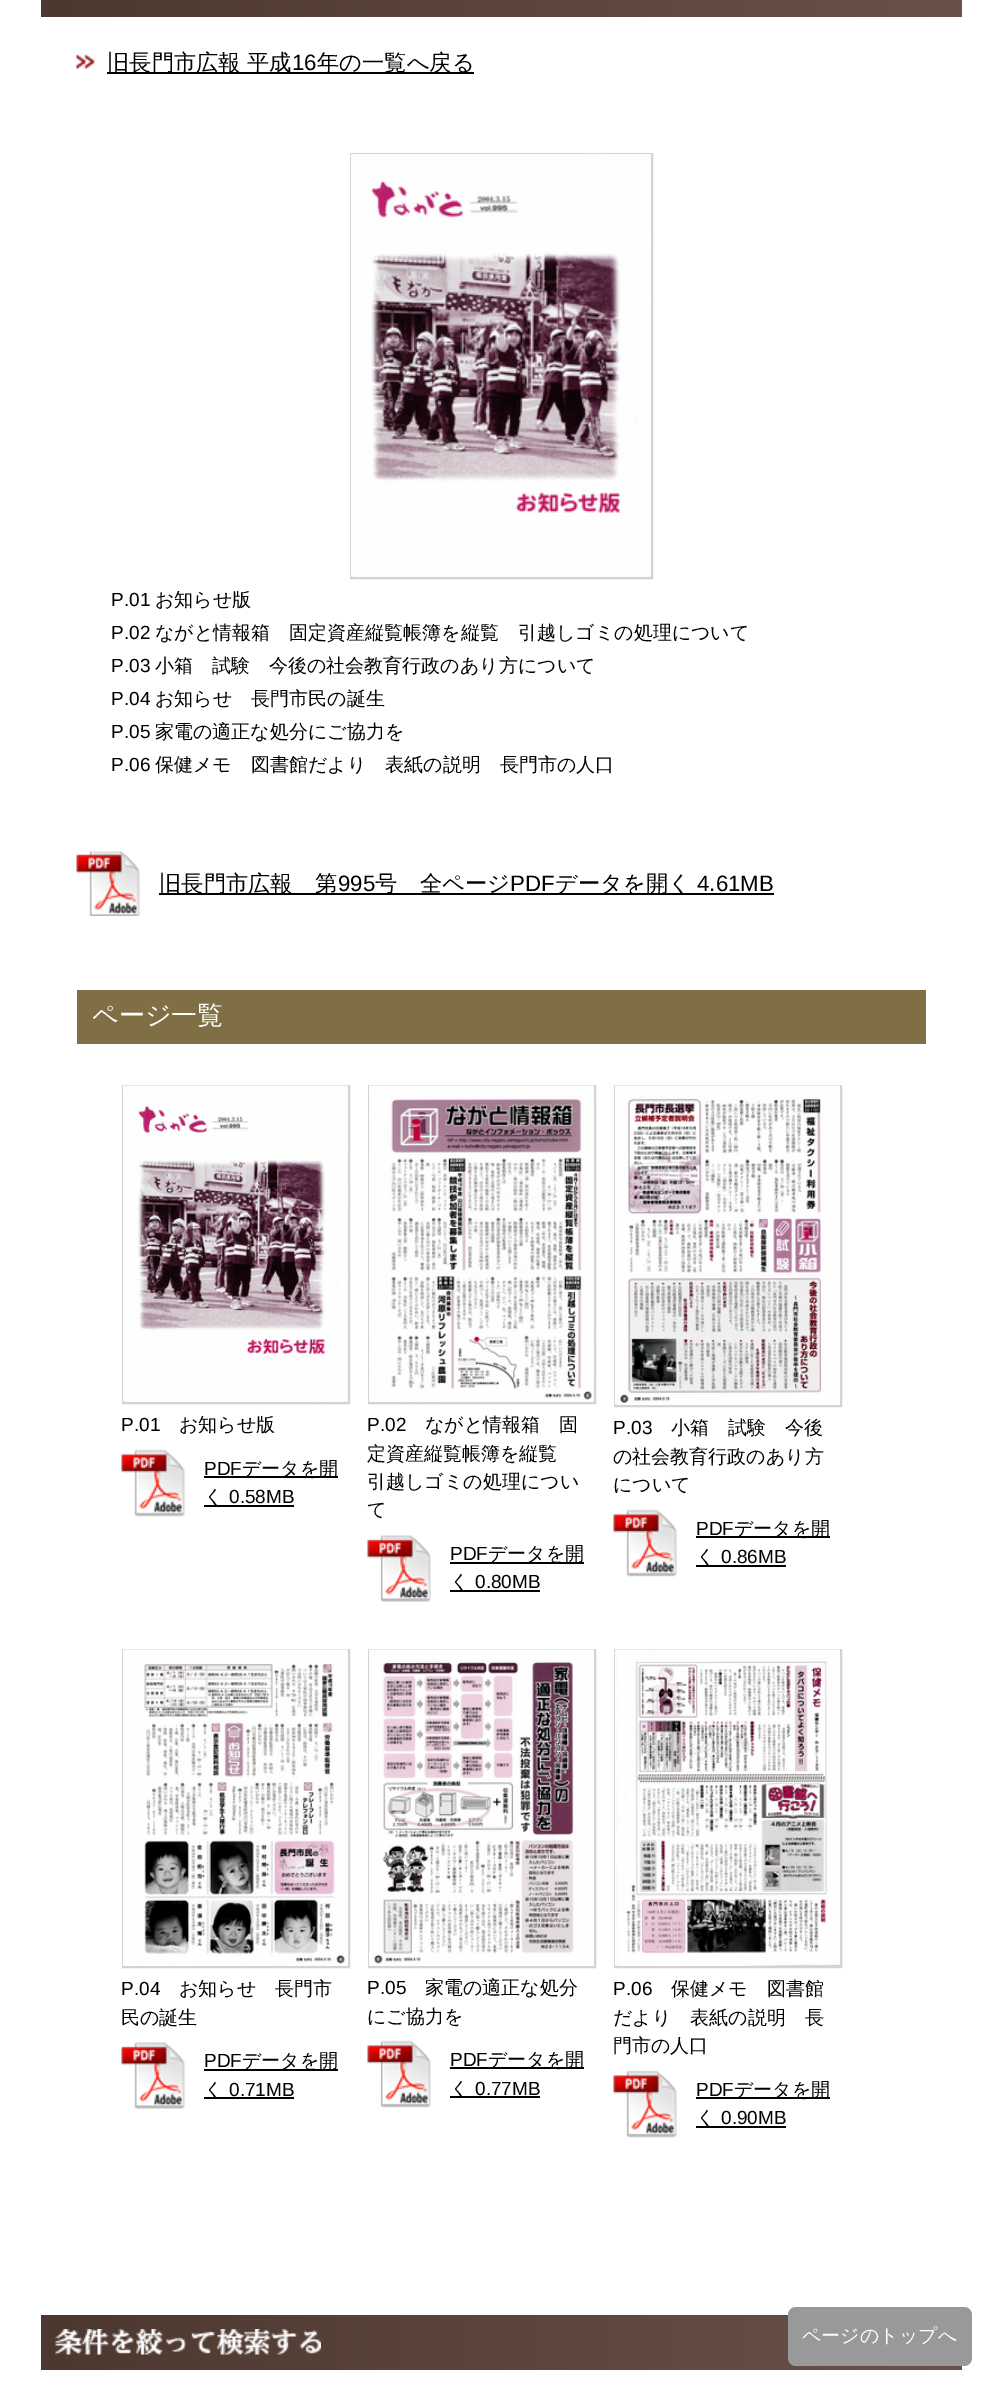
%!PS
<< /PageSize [1001 2395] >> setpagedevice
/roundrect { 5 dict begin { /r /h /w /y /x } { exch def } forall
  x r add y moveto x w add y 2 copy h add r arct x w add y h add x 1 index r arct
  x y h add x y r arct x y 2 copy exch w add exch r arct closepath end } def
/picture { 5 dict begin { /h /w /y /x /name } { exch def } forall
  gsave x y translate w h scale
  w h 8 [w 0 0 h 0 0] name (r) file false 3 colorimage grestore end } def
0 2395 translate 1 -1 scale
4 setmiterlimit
1 setgray
0 0 1001 2395 rectfill
gsave newpath 41 0 moveto 962 0 lineto 962 17 lineto 41 17 lineto closepath clip newpath
<< /ShadingType 2 /ColorSpace /DeviceRGB /Coords [41 -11 962 -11] /Extend [true true] /Function << /FunctionType 2 /Domain [0 1] /C0 [0.302 0.22 0.188] /C1 [0.408 0.322 0.286] /N 1 >> >> shfill grestore
(img1.rgb) 76 54 19 15 picture
0 setgray
107 72 367 2 rectfill
/WenQuanYiZenHei-Medium [22.25 0 0 -22.25 0 0] selectfont
107 70 moveto (旧長門市広報 平成) show
/LiberationSans-Regular [22.25 0 0 -22.25 0 0] selectfont
292 70 moveto (16) show
/WenQuanYiZenHei-Medium [22.25 0 0 -22.25 0 0] selectfont
317 70 moveto (年の一覧へ戻る) show
0.827 setgray
2 setlinewidth
351 154 301 424 rectstroke
(img2.rgb) 351 154 300 423 picture
/LiberationSans-Regular [19 0 0 -19 0 0] selectfont
0 setgray
111 606 moveto (P.01) show
/WenQuanYiZenHei-Medium [19 0 0 -19 0 0] selectfont
155 606 moveto (お知らせ版) show
/LiberationSans-Regular [19 0 0 -19 0 0] selectfont
111 639 moveto (P.02) show
/WenQuanYiZenHei-Medium [19 0 0 -19 0 0] selectfont
155 639 moveto (ながと情報箱　固定資産縦覧帳簿を縦覧　引越しゴミの処理について) show
/LiberationSans-Regular [19 0 0 -19 0 0] selectfont
111 672 moveto (P.03) show
/WenQuanYiZenHei-Medium [19 0 0 -19 0 0] selectfont
155 672 moveto (小箱　試験　今後の社会教育行政のあり方について) show
/LiberationSans-Regular [19 0 0 -19 0 0] selectfont
111 705 moveto (P.04) show
/WenQuanYiZenHei-Medium [19 0 0 -19 0 0] selectfont
155 705 moveto (お知らせ　長門市民の誕生) show
/LiberationSans-Regular [19 0 0 -19 0 0] selectfont
111 738 moveto (P.05) show
/WenQuanYiZenHei-Medium [19 0 0 -19 0 0] selectfont
155 738 moveto (家電の適正な処分にご協力を) show
/LiberationSans-Regular [19 0 0 -19 0 0] selectfont
111 771 moveto (P.06) show
/WenQuanYiZenHei-Medium [19 0 0 -19 0 0] selectfont
155 771 moveto (保健メモ　図書館だより　表紙の説明　長門市の人口) show
(img3.rgb) 76 851 64 65 picture
159 893 615 2 rectfill
/WenQuanYiZenHei-Medium [22.25 0 0 -22.25 0 0] selectfont
159 891 moveto (旧長門市広報　第) show
/LiberationSans-Regular [22.25 0 0 -22.25 0 0] selectfont
338 891 moveto (995) show
/WenQuanYiZenHei-Medium [22.25 0 0 -22.25 0 0] selectfont
375 891 moveto (号　全ページ) show
/LiberationSans-Regular [22.25 0 0 -22.25 0 0] selectfont
510 891 moveto (PDF) show
/WenQuanYiZenHei-Medium [22.25 0 0 -22.25 0 0] selectfont
555 891 moveto (データを開く) show
/LiberationSans-Regular [22.25 0 0 -22.25 0 0] selectfont
697 891 moveto (4.61MB) show
0.502 0.435 0.271 setrgbcolor
77 990 849 54 rectfill
/WenQuanYiZenHei-Medium [26 0 0 -26 0 0] selectfont
1 setgray
92 1024 moveto (ページ一覧) show
0.827 setgray
123 1086 226 317 rectstroke
(img4.rgb) 123 1085 225 317 picture
/LiberationSans-Regular [19 0 0 -19 0 0] selectfont
0 setgray
121 1431 moveto (P.01) show
/WenQuanYiZenHei-Medium [19 0 0 -19 0 0] selectfont
179 1431 moveto (お知らせ版) show
(img5.rgb) 121 1449 64 68 picture
/LiberationSans-Regular [19 0 0 -19 0 0] selectfont
204 1475 moveto (PDF) show
204 1476 134 2 rectfill
/WenQuanYiZenHei-Medium [19 0 0 -19 0 0] selectfont
242 1475 moveto (データを開) show
204 1505 90 2 rectfill
204 1503 moveto (く) show
/LiberationSans-Regular [19 0 0 -19 0 0] selectfont
229 1503 moveto (0.58MB) show
0.827 setgray
369 1086 226 317 rectstroke
(img6.rgb) 369 1085 225 317 picture
0 setgray
367 1431 moveto (P.02) show
/WenQuanYiZenHei-Medium [19 0 0 -19 0 0] selectfont
425 1431 moveto (ながと情報箱　固) show
367 1460 moveto (定資産縦覧帳簿を縦覧) show
367 1488 moveto (引越しゴミの処理につい) show
367 1516 moveto (て) show
(img7.rgb) 367 1535 64 67 picture
/LiberationSans-Regular [19 0 0 -19 0 0] selectfont
450 1560 moveto (PDF) show
450 1562 134 2 rectfill
/WenQuanYiZenHei-Medium [19 0 0 -19 0 0] selectfont
488 1560 moveto (データを開) show
450 1590 90 2 rectfill
450 1588 moveto (く) show
/LiberationSans-Regular [19 0 0 -19 0 0] selectfont
475 1588 moveto (0.80MB) show
0.827 setgray
615 1086 226 320 rectstroke
(img8.rgb) 615 1085 225 320 picture
0 setgray
613 1434 moveto (P.03) show
/WenQuanYiZenHei-Medium [19 0 0 -19 0 0] selectfont
671 1434 moveto (小箱　試験　今後) show
613 1463 moveto (の社会教育行政のあり方) show
613 1491 moveto (について) show
(img9.rgb) 613 1509 64 68 picture
/LiberationSans-Regular [19 0 0 -19 0 0] selectfont
696 1535 moveto (PDF) show
696 1536 134 2 rectfill
/WenQuanYiZenHei-Medium [19 0 0 -19 0 0] selectfont
734 1535 moveto (データを開) show
696 1565 90 2 rectfill
696 1563 moveto (く) show
/LiberationSans-Regular [19 0 0 -19 0 0] selectfont
721 1563 moveto (0.86MB) show
0.827 setgray
123 1650 226 317 rectstroke
(img10.rgb) 123 1649 225 317 picture
0 setgray
121 1995 moveto (P.04) show
/WenQuanYiZenHei-Medium [19 0 0 -19 0 0] selectfont
179 1995 moveto (お知らせ　長門市) show
121 2024 moveto (民の誕生) show
(img7.rgb) 121 2042 64 67 picture
/LiberationSans-Regular [19 0 0 -19 0 0] selectfont
204 2067 moveto (PDF) show
204 2069 134 2 rectfill
/WenQuanYiZenHei-Medium [19 0 0 -19 0 0] selectfont
242 2067 moveto (データを開) show
204 2097 90 2 rectfill
204 2096 moveto (く) show
/LiberationSans-Regular [19 0 0 -19 0 0] selectfont
229 2096 moveto (0.71MB) show
0.827 setgray
369 1650 226 317 rectstroke
(img11.rgb) 369 1649 225 317 picture
0 setgray
367 1994 moveto (P.05) show
/WenQuanYiZenHei-Medium [19 0 0 -19 0 0] selectfont
425 1994 moveto (家電の適正な処分) show
367 2023 moveto (にご協力を) show
(img5.rgb) 367 2040 64 68 picture
/LiberationSans-Regular [19 0 0 -19 0 0] selectfont
450 2066 moveto (PDF) show
450 2067 134 2 rectfill
/WenQuanYiZenHei-Medium [19 0 0 -19 0 0] selectfont
488 2066 moveto (データを開) show
450 2096 90 2 rectfill
450 2095 moveto (く) show
/LiberationSans-Regular [19 0 0 -19 0 0] selectfont
475 2095 moveto (0.77MB) show
0.827 setgray
615 1650 226 317 rectstroke
(img12.rgb) 615 1649 225 317 picture
0 setgray
613 1995 moveto (P.06) show
/WenQuanYiZenHei-Medium [19 0 0 -19 0 0] selectfont
671 1995 moveto (保健メモ　図書館) show
613 2024 moveto (だより　表紙の説明　長) show
613 2052 moveto (門市の人口) show
(img9.rgb) 613 2070 64 68 picture
/LiberationSans-Regular [19 0 0 -19 0 0] selectfont
696 2096 moveto (PDF) show
696 2097 134 2 rectfill
/WenQuanYiZenHei-Medium [19 0 0 -19 0 0] selectfont
734 2096 moveto (データを開) show
696 2126 90 2 rectfill
696 2124 moveto (く) show
/LiberationSans-Regular [19 0 0 -19 0 0] selectfont
721 2124 moveto (0.90MB) show
gsave newpath 41 2315 moveto 962 2315 lineto 962 2370 lineto 41 2370 lineto closepath clip newpath
<< /ShadingType 2 /ColorSpace /DeviceRGB /Coords [41 2342 962 2342] /Extend [true true] /Function << /FunctionType 2 /Domain [0 1] /C0 [0.302 0.22 0.188] /C1 [0.408 0.322 0.286] /N 1 >> >> shfill grestore
(img13.rgb) 55 2329 266 26 picture
0.6 setgray
788 2307 184 59 8 roundrect fill
/WenQuanYiZenHei-Medium [19 0 0 -19 0 0] selectfont
1 setgray
802 2342 moveto (ページのトップへ) show
showpage
